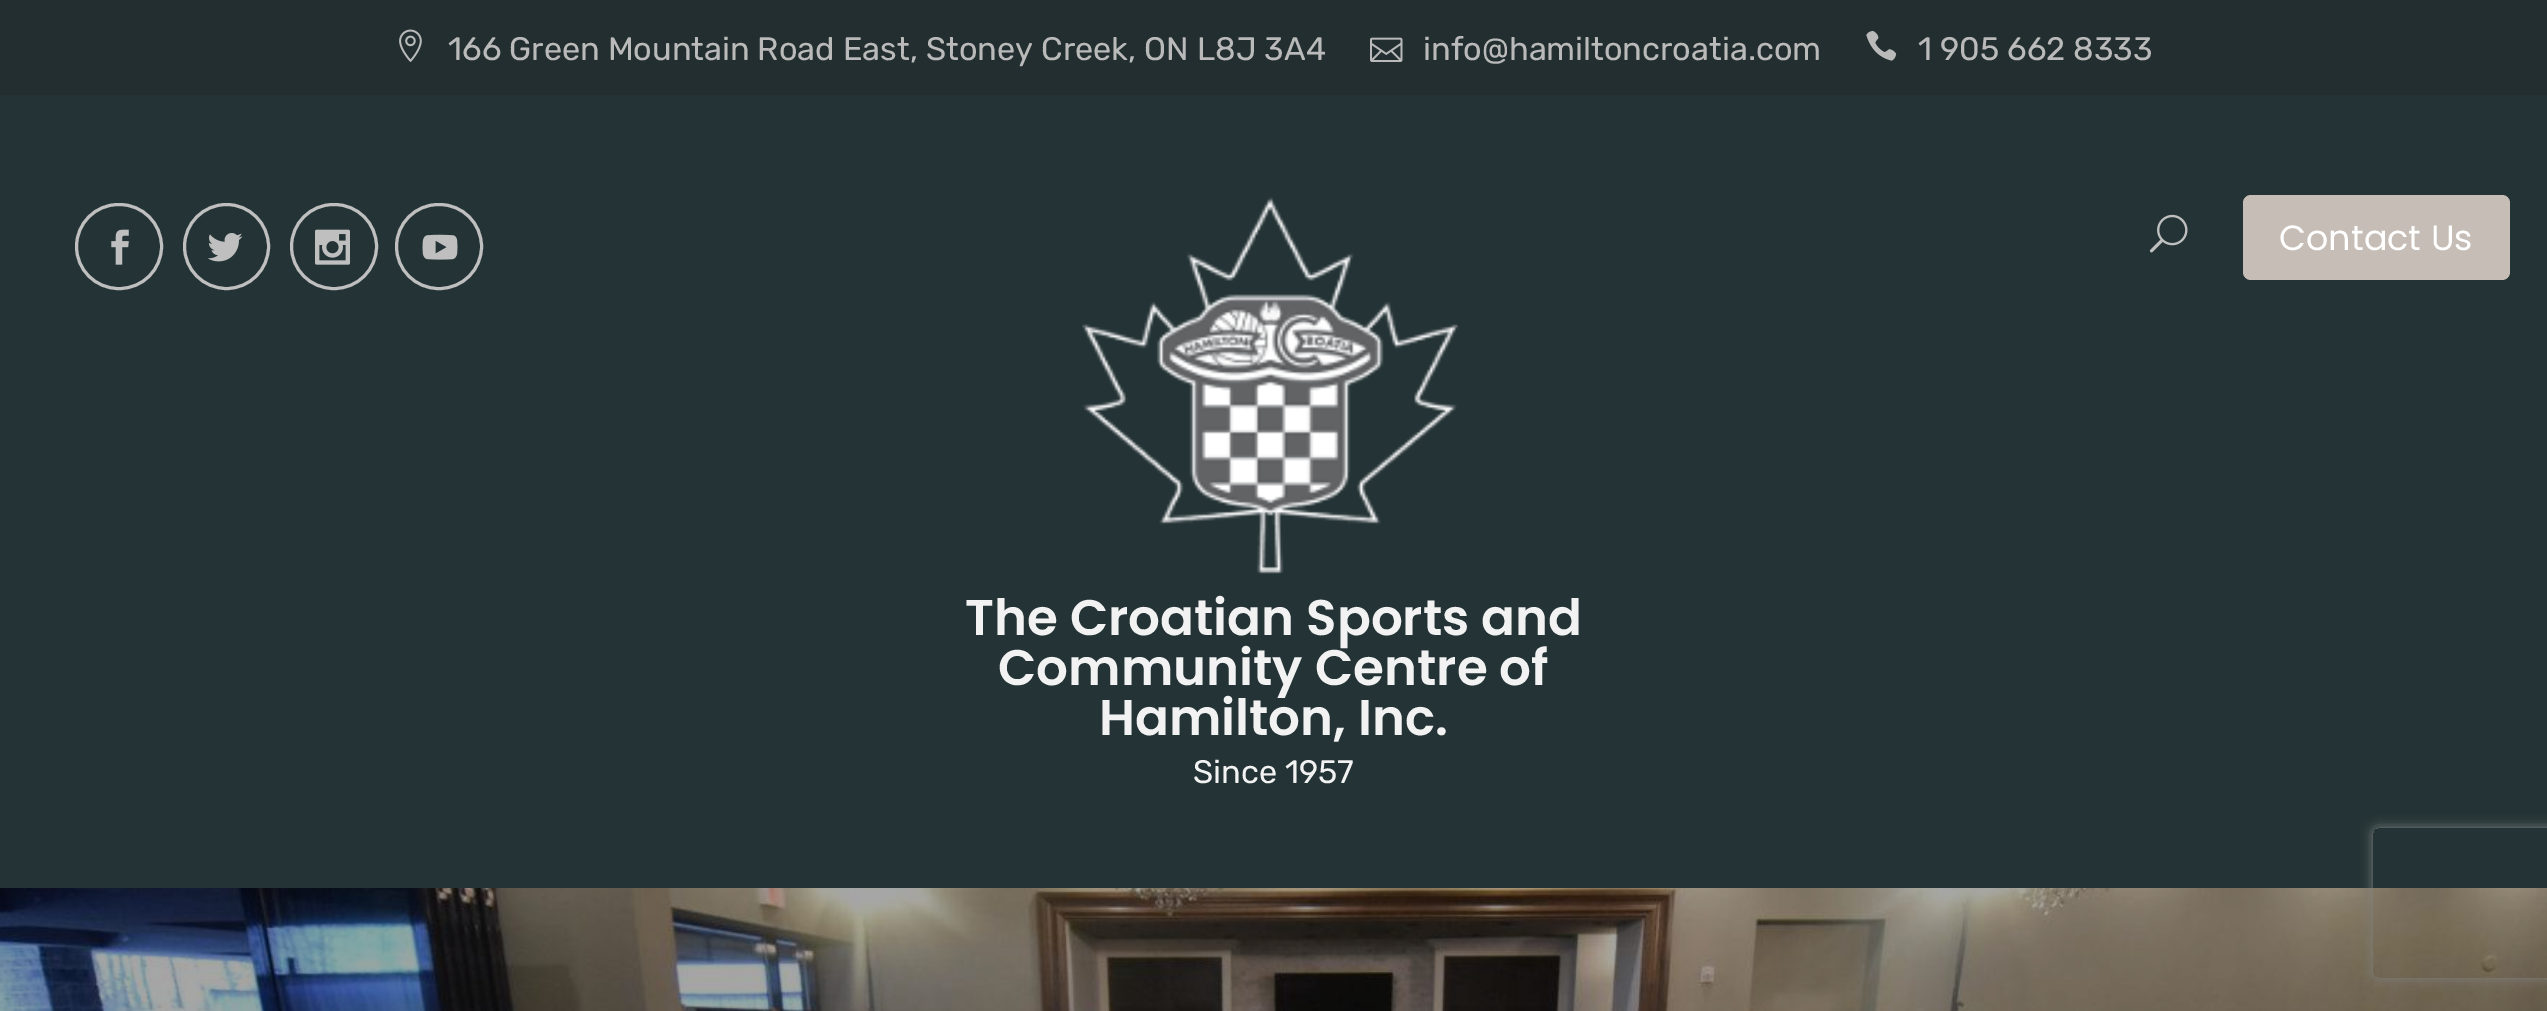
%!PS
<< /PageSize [2547 1011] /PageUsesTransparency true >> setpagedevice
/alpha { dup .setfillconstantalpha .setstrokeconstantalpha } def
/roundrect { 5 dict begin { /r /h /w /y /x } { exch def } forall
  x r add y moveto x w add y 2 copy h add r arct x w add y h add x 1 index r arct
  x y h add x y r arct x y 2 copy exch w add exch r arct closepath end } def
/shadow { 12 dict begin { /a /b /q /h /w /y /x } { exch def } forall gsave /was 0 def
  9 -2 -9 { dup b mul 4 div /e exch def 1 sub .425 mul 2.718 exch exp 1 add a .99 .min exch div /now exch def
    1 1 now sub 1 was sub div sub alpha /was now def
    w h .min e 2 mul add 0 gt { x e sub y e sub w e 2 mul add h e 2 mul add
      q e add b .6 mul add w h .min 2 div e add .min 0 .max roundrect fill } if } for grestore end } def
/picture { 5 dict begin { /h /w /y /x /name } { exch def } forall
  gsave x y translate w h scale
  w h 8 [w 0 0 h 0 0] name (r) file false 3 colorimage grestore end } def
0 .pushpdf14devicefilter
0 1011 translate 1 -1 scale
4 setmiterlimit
1 setgray
0 0 2547 1011 rectfill
0.141 0.2 0.208 setrgbcolor
0 95 2547 793 rectfill
0.133 0.18 0.184 setrgbcolor
0 0 2547 95 rectfill
(img1.rgb) 399 29 23 33 picture
/Rubik-Regular [32.5 0 0 -32.5 0 0] selectfont
0.729 setgray
448 60 moveto (166 Green Mountain Road East, Stoney Creek, ON L8J 3A4) show
(img2.rgb) 1370 37 33 25 picture
1423 60 moveto (info@hamiltoncroatia.com) show
(img3.rgb) 1866 30 31 31 picture
1918 60 moveto (1 905 662 8333) show
0.749 setgray
3 setlinewidth
76.5 204.5 85 84 42 roundrect stroke
(img4.rgb) 111 229 18 36 picture
newpath 226.5 246.5 42 0 360 arc closepath stroke
(img5.rgb) 207 233 36 29 picture
291.5 204.5 85 84 42 roundrect stroke
(img6.rgb) 315 229 35 36 picture
396.5 204.5 85 84 42 roundrect stroke
(img7.rgb) 422 234 36 26 picture
(img8.rgb) 2149 214 39 39 picture
0.776 0.745 0.714 setrgbcolor
2243 195 267 85 8 roundrect fill
/Poppins-Regular [35 0 0 -35 0 0] selectfont
1 setgray
2279 250 moveto (Contact Us) show
(img9.rgb) 1082 197 377 377 picture
/Poppins-SemiBold [50 0 0 -50 0 0] selectfont
0.949 setgray
965 635 moveto (The Croatian Sports and) show
998 685 moveto (Community Centre of) show
1099 735 moveto (Hamilton, Inc.) show
/Rubik-Regular [32.5 0 0 -32.5 0 0] selectfont
1193 783 moveto (Since 1957) show
(img10.rgb) 0 888 2547 123 picture
gsave
newpath 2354 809 moveto 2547 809 lineto 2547 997 lineto 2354 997 lineto closepath 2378 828 moveto 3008 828 lineto 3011 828 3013 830 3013 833 curveto 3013 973 lineto 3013 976 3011 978 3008 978 curveto 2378 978 lineto 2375 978 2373 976 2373 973 curveto 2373 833 lineto 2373 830 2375 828 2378 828 curveto closepath eoclip newpath
0.502 setgray
2373 828 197 150 5 6 1 shadow
grestore
.poppdf14devicefilter showpage
